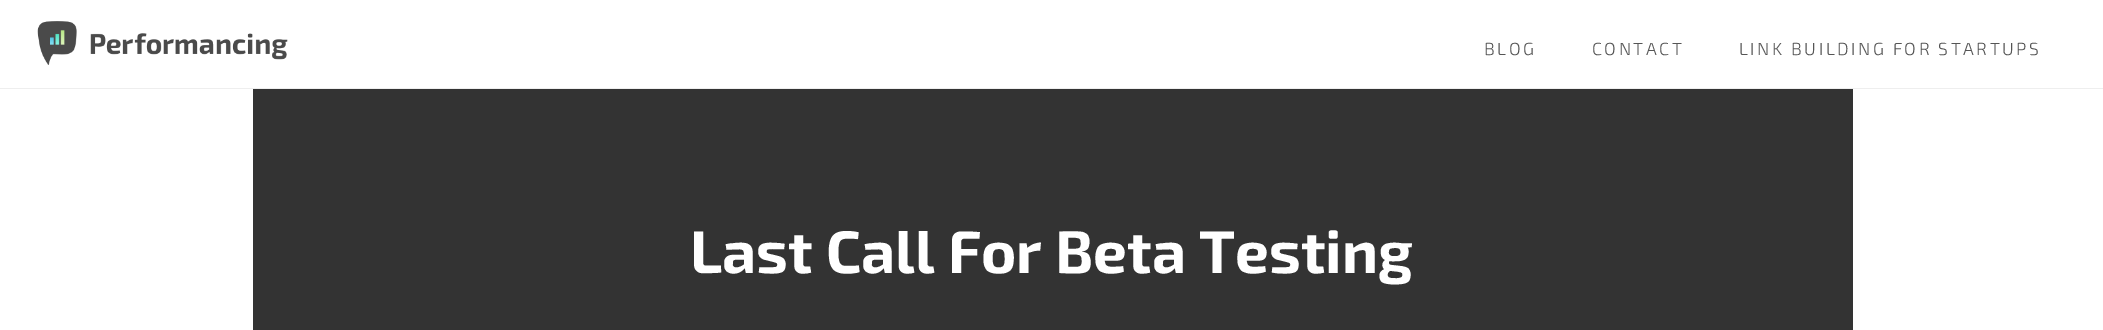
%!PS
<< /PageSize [2103 330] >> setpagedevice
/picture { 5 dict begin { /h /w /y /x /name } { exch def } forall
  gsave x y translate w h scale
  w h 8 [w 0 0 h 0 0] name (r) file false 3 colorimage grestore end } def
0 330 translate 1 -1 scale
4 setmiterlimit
1 setgray
0 0 2103 330 rectfill
0.933 setgray
0 88 2103 1 rectfill
(img1.rgb) 37 21 251 44 picture
/Exo2-Light [17.5 0 0 -17.5 0 0] selectfont
0.333 setgray
1484 55 moveto 2.5 0 (BLOG) ashow
1592 55 moveto 2.5 0 (CONTACT) ashow
1739 55 moveto 2.5 0 (LINK BUILDING FOR STARTUPS) ashow
0.2 setgray
253 89 1600 241 rectfill
/Exo2-Bold [60 0 0 -60 0 0] selectfont
1 setgray
690 273 moveto (Last Call For Beta Testing) show
showpage
